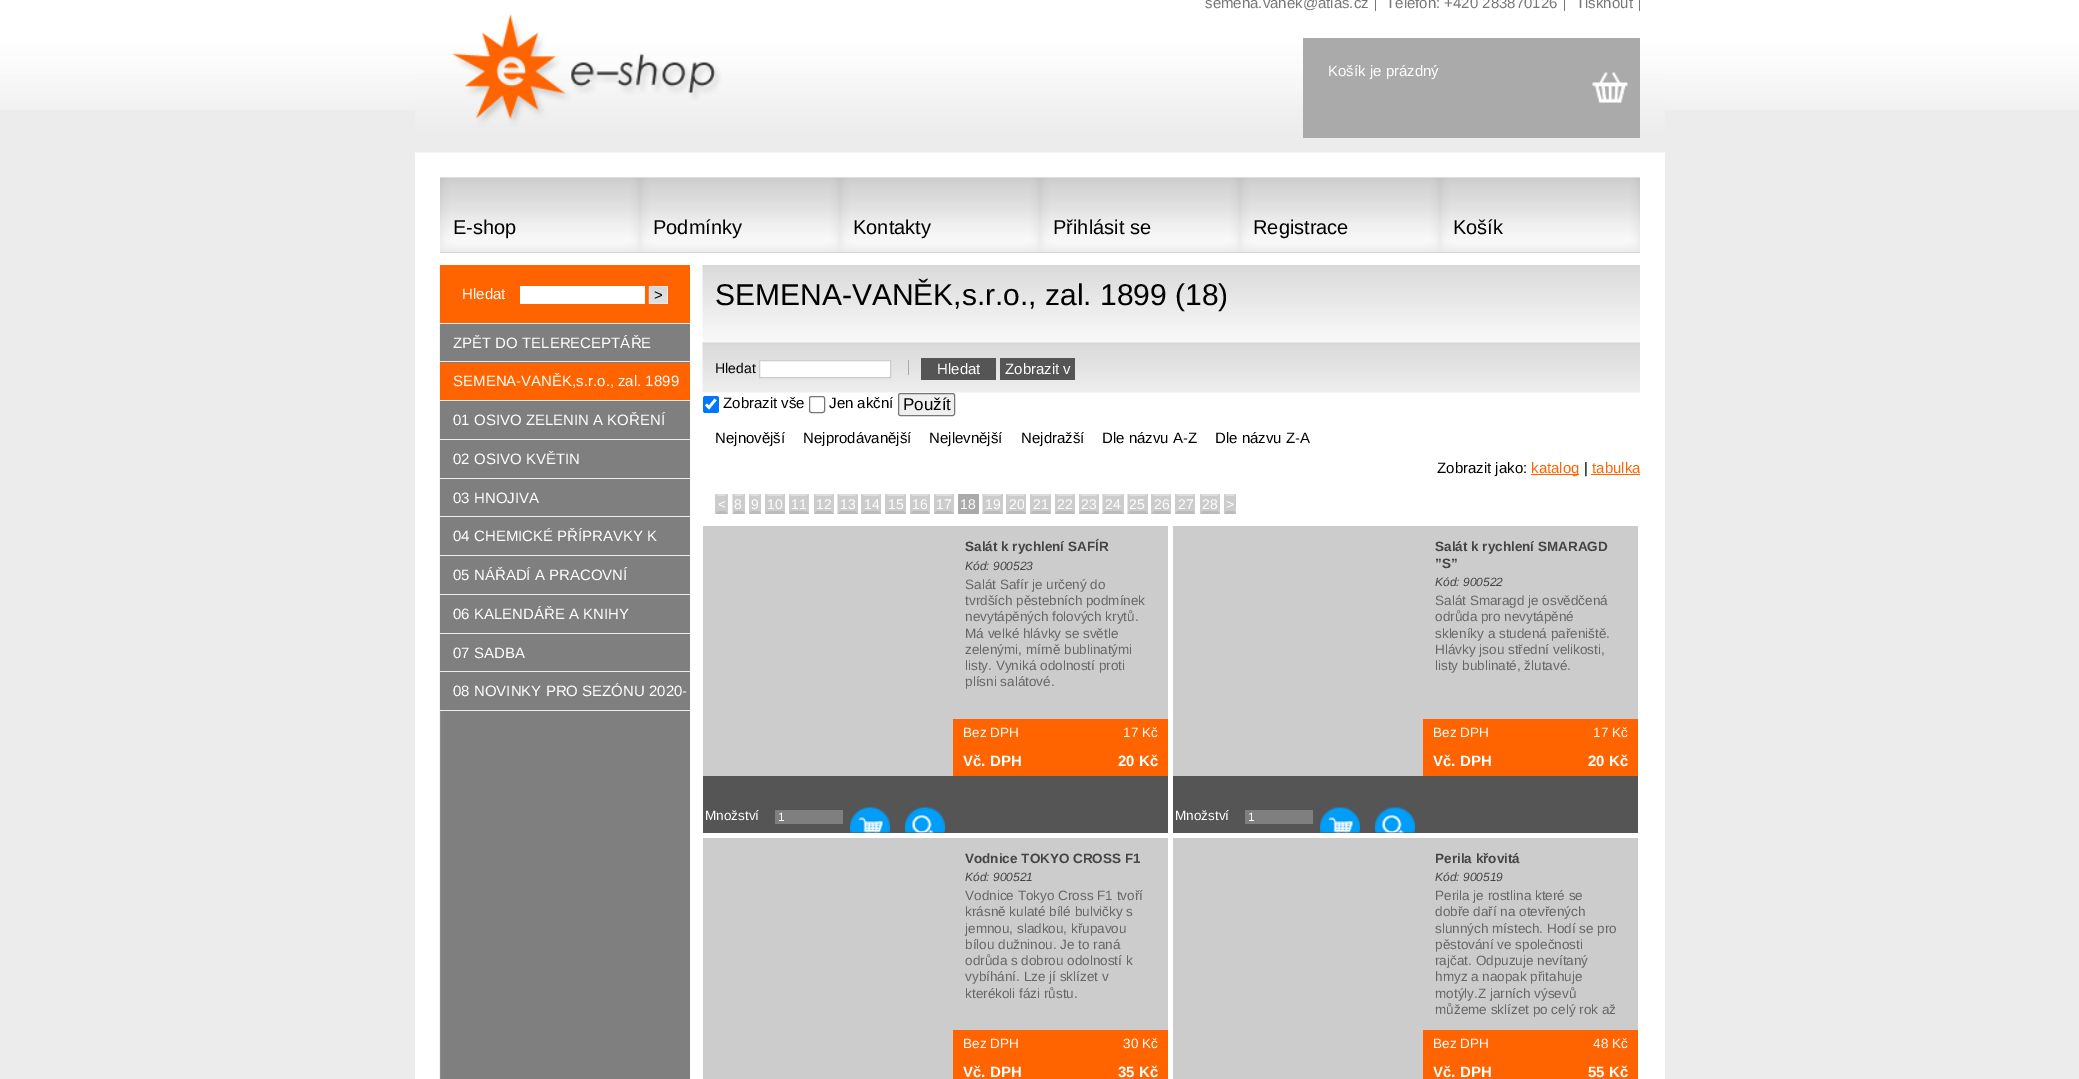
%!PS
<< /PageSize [2079 1079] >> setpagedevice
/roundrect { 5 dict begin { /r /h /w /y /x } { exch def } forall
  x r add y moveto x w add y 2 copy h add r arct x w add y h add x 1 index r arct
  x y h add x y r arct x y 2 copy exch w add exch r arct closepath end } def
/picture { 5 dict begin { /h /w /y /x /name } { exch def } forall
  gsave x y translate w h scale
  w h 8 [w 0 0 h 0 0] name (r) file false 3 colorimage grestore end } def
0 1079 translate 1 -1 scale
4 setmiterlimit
0.925 setgray
0 0 2079 1079 rectfill
(img1.rgb) 0 0 2079 110 picture
1 setgray
415 54 1250 211 rectfill
(img2.rgb) 415 13 1250 140 picture
/LiberationSans-Regular [15 0 0 -15 0 0] selectfont
0.467 setgray
1205 8 moveto (semena.vanek@atlas.cz) show
1375 0 1 11 rectfill
1386 8 moveto (Telefon: +420 283870126) show
1564 0 1 11 rectfill
1576 8 moveto (Tisknout) show
1639 0 1 11 rectfill
0.667 setgray
1303 38 337 100 rectfill
(img3.rgb) 1592 72 36 31 picture
1 setgray
1328 76 moveto (Košík je prázdný) show
(img4.rgb) 440 177 1200 1 picture
0.8 setgray
440 252 1200 1 rectfill
(img5.rgb) 440 177 200 76 picture
/LiberationSans-Regular [20 0 0 -20 0 0] selectfont
0 setgray
453 234 moveto (E-shop) show
(img6.rgb) 640 177 200 76 picture
653 234 moveto (Podmínky) show
(img5.rgb) 840 177 200 76 picture
853 234 moveto (Kontakty) show
(img7.rgb) 1040 177 200 76 picture
1053 234 moveto (Přihlásit se) show
(img6.rgb) 1240 177 200 76 picture
1253 234 moveto (Registrace) show
(img6.rgb) 1440 177 200 76 picture
1453 234 moveto (Košík) show
1 setgray
415 265 1250 814 rectfill
(img9.rgb) 439 265 251 814 picture
1 0.392 0 setrgbcolor
440 265 250 58 rectfill
0.925 setgray
440 323 250 1 rectfill
/LiberationSans-Regular [15 0 0 -15 0 0] selectfont
1 setgray
462 299 moveto (Hledat) show
520 286 125 18 rectfill
649 286 19 18 rectfill
(img8.rgb) 648 286 20 18 picture
0 setgray
654 300 moveto (>) show
0.498 setgray
440 324 1 386 rectfill
0.925 setgray
440 361 250 1 rectfill
1 setgray
453 348 moveto (ZPĚT DO TELERECEPTÁŘE) show
1 0.392 0 setrgbcolor
440 363 250 37 rectfill
0.925 setgray
440 400 250 1 rectfill
1 setgray
453 386 moveto (SEMENA-VANĚK,s.r.o., zal. 1899) show
0.925 setgray
440 439 250 1 rectfill
1 setgray
453 425 moveto (01 OSIVO ZELENIN A KOŘENÍ) show
0.925 setgray
440 478 250 1 rectfill
1 setgray
453 464 moveto (02 OSIVO KVĚTIN) show
0.925 setgray
440 516 250 1 rectfill
1 setgray
453 503 moveto (03 HNOJIVA) show
0.925 setgray
440 555 250 1 rectfill
1 setgray
453 541 moveto (04 CHEMICKÉ PŘÍPRAVKY K) show
0.925 setgray
440 594 250 1 rectfill
1 setgray
453 580 moveto (05 NÁŘADÍ A PRACOVNÍ) show
0.925 setgray
440 633 250 1 rectfill
1 setgray
453 619 moveto (06 KALENDÁŘE A KNIHY) show
0.925 setgray
440 671 250 1 rectfill
1 setgray
453 658 moveto (07 SADBA) show
0.925 setgray
440 710 250 1 rectfill
1 setgray
453 696 moveto (08 NOVINKY PRO SEZÓNU 2020-) show
(img10.rgb) 702 265 938 87 picture
/LiberationSans-Regular [30 0 0 -30 0 0] selectfont
0 setgray
715 305 moveto (SEMENA-VANĚK,s.r.o., zal. 1899 \(18\)) show
(img11.rgb) 702 342 938 51 picture
0.667 setgray
908 360 1 15 rectfill
/LiberationSans-Regular [14 0 0 -14 0 0] selectfont
0 setgray
715 373 moveto (Hledat) show
1 setgray
newpath 759.5 360.5 moveto 890.5 360.5 lineto 890.5 377.5 lineto 759.5 377.5 lineto closepath gsave fill grestore
0.8 setgray
stroke
0.333 setgray
921 358 75 22 rectfill
/LiberationSans-Regular [15 0 0 -15 0 0] selectfont
1 setgray
937 374 moveto (Hledat) show
0.333 setgray
1000 358 75 22 rectfill
1 setgray
1005 374 moveto (Zobrazit v) show
0 0.459 1 setrgbcolor
703 396 16 17 2.5 roundrect fill
1 setgray
2.6 setlinewidth
newpath 706 404.5 moveto 709 407.5 lineto 715.5 399.5 lineto stroke
0 setgray
723 408 moveto (Zobrazit vše) show
0.463 setgray
1 setlinewidth
809.5 396.5 15 16 2 roundrect stroke
0 setgray
829 408 moveto (Jen akční) show
0.937 setgray
898.5 393.5 56 22 2 roundrect gsave fill grestore
0.463 setgray
stroke
/LiberationSans-Regular [17 0 0 -17 0 0] selectfont
0 setgray
903 410 moveto (Použít) show
/LiberationSans-Regular [15 0 0 -15 0 0] selectfont
715 443 moveto (Nejnovější) show
gsave
715 429 913 17 rectclip
803 443 moveto (Nejprodávanější) show
grestore
929 443 moveto (Nejlevnější) show
1021 443 moveto (Nejdražší) show
1102 443 moveto (Dle názvu A-Z) show
1215 443 moveto (Dle názvu Z-A) show
1437 473 moveto (Zobrazit jako:) show
1 0.392 0 setrgbcolor
1531 474 48 1 rectfill
1531 473 moveto (katalog) show
0 setgray
1584 473 moveto (|) show
1 0.392 0 setrgbcolor
1592 473 moveto (tabulka) show
1591 474 49 1 rectfill
0.8 setgray
715 494 13 20 rectfill
/LiberationSans-Regular [14 0 0 -14 0 0] selectfont
1 setgray
718 509 moveto (<) show
0.867 setgray
newpath 715 494 moveto 727.5 494 lineto 725 496 lineto 717.5 496 lineto closepath fill
0.8 setgray
newpath 727.5 494 moveto 727.5 514 lineto 725 511 lineto 725 496 lineto closepath fill
0.733 setgray
newpath 727.5 514 moveto 715 514 lineto 717.5 511 lineto 725 511 lineto closepath fill
0.8 setgray
newpath 715 514 moveto 715 494 lineto 717.5 496 lineto 717.5 511 lineto closepath fill
733 494 12 20 rectfill
0.867 setgray
newpath 732.5 494 moveto 745 494 lineto 742.5 496 lineto 735 496 lineto closepath fill
0.8 setgray
newpath 745 494 moveto 745 514 lineto 742.5 511 lineto 742.5 496 lineto closepath fill
0.733 setgray
newpath 745 514 moveto 732.5 514 lineto 735 511 lineto 742.5 511 lineto closepath fill
0.8 setgray
newpath 732.5 514 moveto 732.5 494 lineto 735 496 lineto 735 511 lineto closepath fill
1 setgray
734 509 moveto (8) show
0.8 setgray
749 494 12 20 rectfill
1 setgray
751 509 moveto (9) show
0.867 setgray
newpath 749 494 moveto 761 494 lineto 759 496 lineto 751 496 lineto closepath fill
0.8 setgray
newpath 761 494 moveto 761 514 lineto 759 511 lineto 759 496 lineto closepath fill
0.733 setgray
newpath 761 514 moveto 749 514 lineto 751 511 lineto 759 511 lineto closepath fill
0.8 setgray
newpath 749 514 moveto 749 494 lineto 751 496 lineto 751 511 lineto closepath fill
765 494 20 20 rectfill
0.867 setgray
newpath 765 494 moveto 785 494 lineto 782.5 496 lineto 767.5 496 lineto closepath fill
0.8 setgray
newpath 785 494 moveto 785 514 lineto 782.5 511 lineto 782.5 496 lineto closepath fill
1 setgray
767 509 moveto (10) show
0.733 setgray
newpath 785 514 moveto 765 514 lineto 767.5 511 lineto 782.5 511 lineto closepath fill
0.8 setgray
newpath 765 514 moveto 765 494 lineto 767.5 496 lineto 767.5 511 lineto closepath fill
789 494 20 20 rectfill
1 setgray
791 509 moveto (11) show
0.867 setgray
newpath 789 494 moveto 809 494 lineto 806 496 lineto 791 496 lineto closepath fill
0.8 setgray
newpath 809 494 moveto 809 514 lineto 806 511 lineto 806 496 lineto closepath fill
0.733 setgray
newpath 809 514 moveto 789 514 lineto 791 511 lineto 806 511 lineto closepath fill
0.8 setgray
newpath 789 514 moveto 789 494 lineto 791 496 lineto 791 511 lineto closepath fill
814 494 20 20 rectfill
1 setgray
816 509 moveto (12) show
0.867 setgray
newpath 814 494 moveto 834 494 lineto 831 496 lineto 816 496 lineto closepath fill
0.8 setgray
newpath 834 494 moveto 834 514 lineto 831 511 lineto 831 496 lineto closepath fill
0.733 setgray
newpath 834 514 moveto 814 514 lineto 816 511 lineto 831 511 lineto closepath fill
0.8 setgray
newpath 814 514 moveto 814 494 lineto 816 496 lineto 816 511 lineto closepath fill
838 494 20 20 rectfill
1 setgray
840 509 moveto (13) show
0.867 setgray
newpath 837.5 494 moveto 857.5 494 lineto 855 496 lineto 840 496 lineto closepath fill
0.8 setgray
newpath 857.5 494 moveto 857.5 514 lineto 855 511 lineto 855 496 lineto closepath fill
0.733 setgray
newpath 857.5 514 moveto 837.5 514 lineto 840 511 lineto 855 511 lineto closepath fill
0.8 setgray
newpath 837.5 514 moveto 837.5 494 lineto 840 496 lineto 840 511 lineto closepath fill
861 494 20 20 rectfill
1 setgray
864 509 moveto (14) show
0.867 setgray
newpath 861 494 moveto 881 494 lineto 879 496 lineto 864 496 lineto closepath fill
0.8 setgray
newpath 881 494 moveto 881 514 lineto 879 511 lineto 879 496 lineto closepath fill
0.733 setgray
newpath 881 514 moveto 861 514 lineto 864 511 lineto 879 511 lineto closepath fill
0.8 setgray
newpath 861 514 moveto 861 494 lineto 864 496 lineto 864 511 lineto closepath fill
885 494 21 20 rectfill
1 setgray
888 509 moveto (15) show
0.867 setgray
newpath 885 494 moveto 906 494 lineto 904 496 lineto 887.5 496 lineto closepath fill
0.8 setgray
newpath 906 494 moveto 906 514 lineto 904 511 lineto 904 496 lineto closepath fill
0.733 setgray
newpath 906 514 moveto 885 514 lineto 887.5 511 lineto 904 511 lineto closepath fill
0.8 setgray
newpath 885 514 moveto 885 494 lineto 887.5 496 lineto 887.5 511 lineto closepath fill
910 494 20 20 rectfill
1 setgray
912 509 moveto (16) show
0.867 setgray
newpath 910 494 moveto 930 494 lineto 927.5 496 lineto 912.5 496 lineto closepath fill
0.8 setgray
newpath 930 494 moveto 930 514 lineto 927.5 511 lineto 927.5 496 lineto closepath fill
0.733 setgray
newpath 930 514 moveto 910 514 lineto 912.5 511 lineto 927.5 511 lineto closepath fill
0.8 setgray
newpath 910 514 moveto 910 494 lineto 912.5 496 lineto 912.5 511 lineto closepath fill
934 494 20 20 rectfill
1 setgray
936 509 moveto (17) show
0.867 setgray
newpath 934 494 moveto 954 494 lineto 951 496 lineto 936 496 lineto closepath fill
0.8 setgray
newpath 954 494 moveto 954 514 lineto 951 511 lineto 951 496 lineto closepath fill
0.733 setgray
newpath 954 514 moveto 934 514 lineto 936 511 lineto 951 511 lineto closepath fill
0.8 setgray
newpath 934 514 moveto 934 494 lineto 936 496 lineto 936 511 lineto closepath fill
0.667 setgray
958 494 21 20 rectfill
1 setgray
960 509 moveto (18) show
0.8 setgray
983 494 20 20 rectfill
1 setgray
985 509 moveto (19) show
0.867 setgray
newpath 982.5 494 moveto 1002.5 494 lineto 1000 496 lineto 985 496 lineto closepath fill
0.8 setgray
newpath 1002.5 494 moveto 1002.5 514 lineto 1000 511 lineto 1000 496 lineto closepath fill
0.733 setgray
newpath 1002.5 514 moveto 982.5 514 lineto 985 511 lineto 1000 511 lineto closepath fill
0.8 setgray
newpath 982.5 514 moveto 982.5 494 lineto 985 496 lineto 985 511 lineto closepath fill
1006 494 20 20 rectfill
1 setgray
1009 509 moveto (20) show
0.867 setgray
newpath 1006 494 moveto 1026 494 lineto 1024 496 lineto 1009 496 lineto closepath fill
0.8 setgray
newpath 1026 494 moveto 1026 514 lineto 1024 511 lineto 1024 496 lineto closepath fill
0.733 setgray
newpath 1026 514 moveto 1006 514 lineto 1009 511 lineto 1024 511 lineto closepath fill
0.8 setgray
newpath 1006 514 moveto 1006 494 lineto 1009 496 lineto 1009 511 lineto closepath fill
1030 494 21 20 rectfill
1 setgray
1033 509 moveto (21) show
0.867 setgray
newpath 1030 494 moveto 1051 494 lineto 1049 496 lineto 1032.5 496 lineto closepath fill
0.8 setgray
newpath 1051 494 moveto 1051 514 lineto 1049 511 lineto 1049 496 lineto closepath fill
0.733 setgray
newpath 1051 514 moveto 1030 514 lineto 1032.5 511 lineto 1049 511 lineto closepath fill
0.8 setgray
newpath 1030 514 moveto 1030 494 lineto 1032.5 496 lineto 1032.5 511 lineto closepath fill
1055 494 20 20 rectfill
0.867 setgray
newpath 1055 494 moveto 1075 494 lineto 1072.5 496 lineto 1057.5 496 lineto closepath fill
0.8 setgray
newpath 1075 494 moveto 1075 514 lineto 1072.5 511 lineto 1072.5 496 lineto closepath fill
0.733 setgray
newpath 1075 514 moveto 1055 514 lineto 1057.5 511 lineto 1072.5 511 lineto closepath fill
0.8 setgray
newpath 1055 514 moveto 1055 494 lineto 1057.5 496 lineto 1057.5 511 lineto closepath fill
1 setgray
1057 509 moveto (22) show
0.8 setgray
1079 494 20 20 rectfill
1 setgray
1081 509 moveto (23) show
0.867 setgray
newpath 1079 494 moveto 1099 494 lineto 1096 496 lineto 1081 496 lineto closepath fill
0.8 setgray
newpath 1099 494 moveto 1099 514 lineto 1096 511 lineto 1096 496 lineto closepath fill
0.733 setgray
newpath 1099 514 moveto 1079 514 lineto 1081 511 lineto 1096 511 lineto closepath fill
0.8 setgray
newpath 1079 514 moveto 1079 494 lineto 1081 496 lineto 1081 511 lineto closepath fill
1103 494 21 20 rectfill
1 setgray
1105 509 moveto (24) show
0.867 setgray
newpath 1102.5 494 moveto 1124 494 lineto 1121 496 lineto 1105 496 lineto closepath fill
0.8 setgray
newpath 1124 494 moveto 1124 514 lineto 1121 511 lineto 1121 496 lineto closepath fill
0.733 setgray
newpath 1124 514 moveto 1102.5 514 lineto 1105 511 lineto 1121 511 lineto closepath fill
0.8 setgray
newpath 1102.5 514 moveto 1102.5 494 lineto 1105 496 lineto 1105 511 lineto closepath fill
1128 494 20 20 rectfill
1 setgray
1129 509 moveto (25) show
0.867 setgray
newpath 1127.5 494 moveto 1147.5 494 lineto 1145 496 lineto 1130 496 lineto closepath fill
0.8 setgray
newpath 1147.5 494 moveto 1147.5 514 lineto 1145 511 lineto 1145 496 lineto closepath fill
0.733 setgray
newpath 1147.5 514 moveto 1127.5 514 lineto 1130 511 lineto 1145 511 lineto closepath fill
0.8 setgray
newpath 1127.5 514 moveto 1127.5 494 lineto 1130 496 lineto 1130 511 lineto closepath fill
1151 494 20 20 rectfill
1 setgray
1154 509 moveto (26) show
0.867 setgray
newpath 1151 494 moveto 1171 494 lineto 1169 496 lineto 1154 496 lineto closepath fill
0.8 setgray
newpath 1171 494 moveto 1171 514 lineto 1169 511 lineto 1169 496 lineto closepath fill
0.733 setgray
newpath 1171 514 moveto 1151 514 lineto 1154 511 lineto 1169 511 lineto closepath fill
0.8 setgray
newpath 1151 514 moveto 1151 494 lineto 1154 496 lineto 1154 511 lineto closepath fill
1175 494 20 20 rectfill
0.867 setgray
newpath 1175 494 moveto 1195 494 lineto 1192.5 496 lineto 1177.5 496 lineto closepath fill
0.8 setgray
newpath 1195 494 moveto 1195 514 lineto 1192.5 511 lineto 1192.5 496 lineto closepath fill
1 setgray
1178 509 moveto (27) show
0.733 setgray
newpath 1195 514 moveto 1175 514 lineto 1177.5 511 lineto 1192.5 511 lineto closepath fill
0.8 setgray
newpath 1175 514 moveto 1175 494 lineto 1177.5 496 lineto 1177.5 511 lineto closepath fill
1200 494 20 20 rectfill
0.867 setgray
newpath 1200 494 moveto 1220 494 lineto 1217.5 496 lineto 1202.5 496 lineto closepath fill
0.8 setgray
newpath 1220 494 moveto 1220 514 lineto 1217.5 511 lineto 1217.5 496 lineto closepath fill
0.733 setgray
newpath 1220 514 moveto 1200 514 lineto 1202.5 511 lineto 1217.5 511 lineto closepath fill
0.8 setgray
newpath 1200 514 moveto 1200 494 lineto 1202.5 496 lineto 1202.5 511 lineto closepath fill
1 setgray
1202 509 moveto (28) show
0.8 setgray
1224 494 12 20 rectfill
1 setgray
1226 509 moveto (>) show
0.867 setgray
newpath 1224 494 moveto 1236 494 lineto 1234 496 lineto 1226 496 lineto closepath fill
0.8 setgray
newpath 1236 494 moveto 1236 514 lineto 1234 511 lineto 1234 496 lineto closepath fill
0.733 setgray
newpath 1236 514 moveto 1224 514 lineto 1226 511 lineto 1234 511 lineto closepath fill
0.8 setgray
newpath 1224 514 moveto 1224 494 lineto 1226 496 lineto 1226 511 lineto closepath fill
703 526 465 250 rectfill
/LiberationSans-Bold [13.5 0 0 -13.5 0 0] selectfont
0.267 setgray
965 551 moveto (Salát k rychlení SAFÍR) show
/LiberationSans-Italic [12 0 0 -12 0 0] selectfont
965 570 moveto (Kód: 900523) show
/LiberationSans-Regular [13.5 0 0 -13.5 0 0] selectfont
0.4 setgray
965 589 moveto (Salát Safír je určený do) show
965 605 moveto (tvrdších pěstebních podmínek) show
965 621 moveto (nevytápěných folových krytů.) show
965 638 moveto (Má velké hlávky se světle) show
965 654 moveto (zelenými, mírně bublinatými) show
965 670 moveto (listy. Vyniká odolností proti) show
965 686 moveto (plísni salátové.) show
1 0.392 0 setrgbcolor
953 719 215 26 rectfill
1 setgray
963 737 moveto (Bez DPH) show
1123 737 moveto (17 Kč) show
1 0.392 0 setrgbcolor
953 745 215 31 rectfill
/LiberationSans-Bold [15 0 0 -15 0 0] selectfont
1 setgray
963 766 moveto (Vč. DPH) show
1118 766 moveto (20 Kč) show
0.333 setgray
703 776 465 57 rectfill
/LiberationSans-Regular [13.5 0 0 -13.5 0 0] selectfont
1 setgray
705 820 moveto (Množství) show
0.498 setgray
775 810 68 14 rectfill
/LiberationSans-Regular [12 0 0 -12 0 0] selectfont
1 setgray
778 821 moveto (1) show
(img12.rgb) 850 807 40 26 picture
(img13.rgb) 905 807 40 26 picture
0.8 setgray
1173 526 465 250 rectfill
/LiberationSans-Bold [13.5 0 0 -13.5 0 0] selectfont
0.267 setgray
1435 551 moveto (Salát k rychlení SMARAGD) show
1435 568 moveto (”S”) show
/LiberationSans-Italic [12 0 0 -12 0 0] selectfont
1435 586 moveto (Kód: 900522) show
/LiberationSans-Regular [13.5 0 0 -13.5 0 0] selectfont
0.4 setgray
1435 605 moveto (Salát Smaragd je osvědčená) show
1435 621 moveto (odrůda pro nevytápěné) show
1435 638 moveto (skleníky a studená pařeniště.) show
1435 654 moveto (Hlávky jsou střední velikosti,) show
1435 670 moveto (listy bublinaté, žlutavé.) show
1 0.392 0 setrgbcolor
1423 719 215 26 rectfill
1 setgray
1433 737 moveto (Bez DPH) show
1593 737 moveto (17 Kč) show
1 0.392 0 setrgbcolor
1423 745 215 31 rectfill
/LiberationSans-Bold [15 0 0 -15 0 0] selectfont
1 setgray
1433 766 moveto (Vč. DPH) show
1588 766 moveto (20 Kč) show
0.333 setgray
1173 776 465 57 rectfill
/LiberationSans-Regular [13.5 0 0 -13.5 0 0] selectfont
1 setgray
1175 820 moveto (Množství) show
0.498 setgray
1245 810 68 14 rectfill
/LiberationSans-Regular [12 0 0 -12 0 0] selectfont
1 setgray
1248 821 moveto (1) show
(img12.rgb) 1320 807 40 26 picture
(img13.rgb) 1375 807 40 26 picture
0.8 setgray
703 838 465 241 rectfill
/LiberationSans-Bold [13.5 0 0 -13.5 0 0] selectfont
0.267 setgray
965 863 moveto (Vodnice TOKYO CROSS F1) show
/LiberationSans-Italic [12 0 0 -12 0 0] selectfont
965 881 moveto (Kód: 900521) show
/LiberationSans-Regular [13.5 0 0 -13.5 0 0] selectfont
0.4 setgray
965 900 moveto (Vodnice Tokyo Cross F1 tvoří) show
965 916 moveto (krásně kulaté bílé bulvičky s) show
965 933 moveto (jemnou, sladkou, křupavou) show
965 949 moveto (bílou dužninou. Je to raná) show
965 965 moveto (odrůda s dobrou odolností k) show
965 981 moveto (vybíhání. Lze jí sklízet v) show
965 998 moveto (kterékoli fázi růstu.) show
1 0.392 0 setrgbcolor
953 1030 215 26 rectfill
1 setgray
963 1048 moveto (Bez DPH) show
1123 1048 moveto (30 Kč) show
1 0.392 0 setrgbcolor
953 1056 215 23 rectfill
/LiberationSans-Bold [15 0 0 -15 0 0] selectfont
1 setgray
963 1077 moveto (Vč. DPH) show
1118 1077 moveto (35 Kč) show
0.8 setgray
1173 838 465 241 rectfill
/LiberationSans-Bold [13.5 0 0 -13.5 0 0] selectfont
0.267 setgray
1435 863 moveto (Perila křovitá) show
/LiberationSans-Italic [12 0 0 -12 0 0] selectfont
1435 881 moveto (Kód: 900519) show
/LiberationSans-Regular [13.5 0 0 -13.5 0 0] selectfont
0.4 setgray
1435 900 moveto (Perila je rostlina které se) show
1435 916 moveto (dobře daří na otevřených) show
1435 933 moveto (slunných místech. Hodí se pro) show
1435 949 moveto (pěstování ve společnosti) show
1435 965 moveto (rajčat. Odpuzuje nevítaný) show
1435 981 moveto (hmyz a naopak přitahuje) show
1435 998 moveto (motýly.Z jarních výsevů) show
1435 1014 moveto (můžeme sklízet po celý rok až) show
1 0.392 0 setrgbcolor
1423 1030 215 26 rectfill
1 setgray
1433 1048 moveto (Bez DPH) show
1593 1048 moveto (48 Kč) show
1 0.392 0 setrgbcolor
1423 1056 215 23 rectfill
/LiberationSans-Bold [15 0 0 -15 0 0] selectfont
1 setgray
1433 1077 moveto (Vč. DPH) show
1588 1077 moveto (55 Kč) show
showpage
